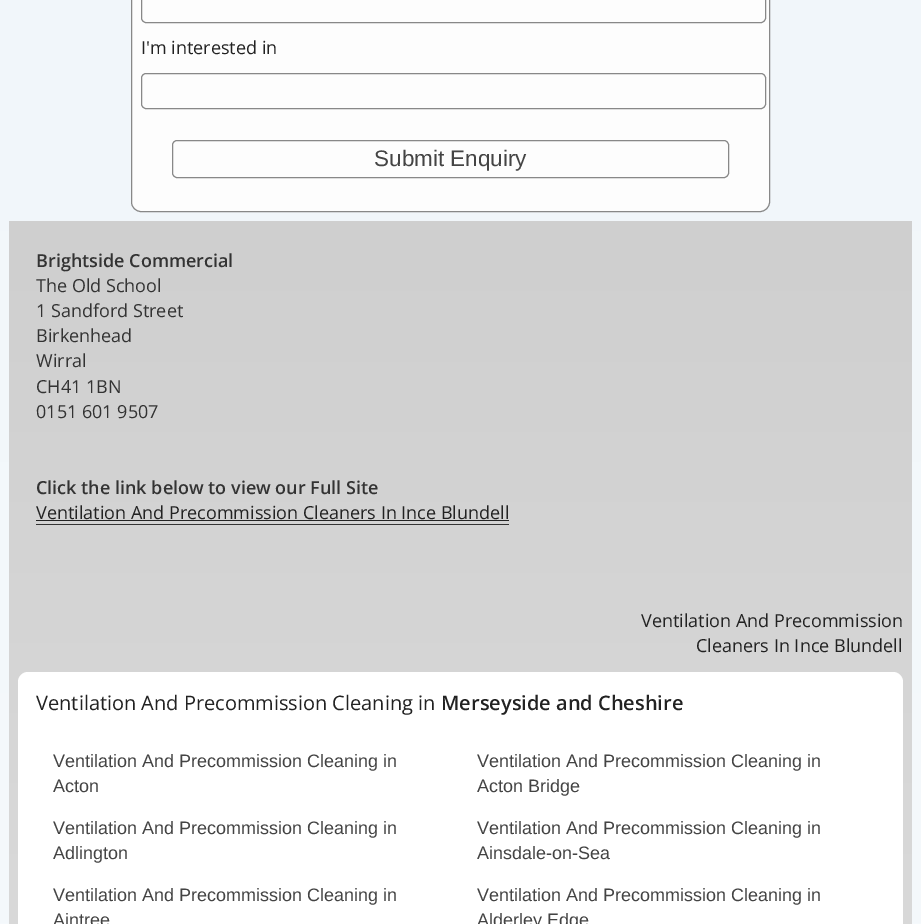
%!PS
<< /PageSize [921 924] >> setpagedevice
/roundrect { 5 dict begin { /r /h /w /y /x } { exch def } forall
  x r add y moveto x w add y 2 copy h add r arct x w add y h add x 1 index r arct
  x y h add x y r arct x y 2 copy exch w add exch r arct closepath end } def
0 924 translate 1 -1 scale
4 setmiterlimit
1 setgray
0 0 921 924 rectfill
gsave newpath 0 0 moveto 921 0 lineto 921 924 lineto 0 924 lineto closepath clip newpath
<< /ShadingType 2 /ColorSpace /DeviceRGB /Coords [100 -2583 100 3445] /Extend [true true] /Function << /FunctionType 2 /Domain [0 1] /C0 [0.902 0.941 0.969] /C1 [1 1 1] /N 1 >> >> shfill grestore
0.992 setgray
131.5 -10.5 638 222 9.5 roundrect gsave fill grestore
0.533 setgray
stroke
141.5 -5.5 624 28 4.5 roundrect stroke
/OpenSans-Regular [18 0 0 -18 0 0] selectfont
0.133 setgray
141 54 moveto (I'm interested in) show
0.533 setgray
141.5 73.5 624 35 4.5 roundrect stroke
172.5 140.5 556 37 4.5 roundrect stroke
/LiberationSans-Regular [22.5 0 0 -22.5 0 0] selectfont
0.267 setgray
374 166 moveto (Submit Enquiry) show
gsave newpath 9 221 moveto 912 221 lineto 912 924 lineto 9 924 lineto closepath clip newpath
<< /ShadingType 2 /ColorSpace /DeviceRGB /Coords [461 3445 461 221] /Extend [true true] /Function << /FunctionType 2 /Domain [0 1] /C0 [0.988 0.988 0.988] /C1 [0.812 0.812 0.812] /N 1 >> >> shfill grestore
/OpenSans-SemiBold [18 0 0 -18 0 0] selectfont
0.2 setgray
36 267 moveto (Brightside Commercial) show
/OpenSans-Regular [18 0 0 -18 0 0] selectfont
36 292 moveto (The Old School) show
36 317 moveto (1 Sandford Street) show
36 342 moveto (Birkenhead) show
36 367 moveto (Wirral) show
36 393 moveto (CH41 1BN) show
36 418 moveto (0151 601 9507) show
/OpenSans-SemiBold [18 0 0 -18 0 0] selectfont
36 494 moveto (Click the link below to view our Full Site) show
/OpenSans-Regular [18 0 0 -18 0 0] selectfont
0.133 setgray
36 519 moveto (Ventilation And Precommission Cleaners In Ince Blundell) show
0.2 setgray
36 524 473 1 rectfill
0.133 setgray
36 520 473 1 rectfill
641 627 moveto (Ventilation And Precommission) show
696 652 moveto (Cleaners In Ince Blundell) show
1 setgray
18 672 885 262 10 roundrect fill
/OpenSans-Regular [20 0 0 -20 0 0] selectfont
0.133 setgray
36 710 moveto (Ventilation And Precommission Cleaning in) show
/OpenSans-SemiBold [20 0 0 -20 0 0] selectfont
441 710 moveto (Merseyside and Cheshire) show
/LiberationSans-Regular [18 0 0 -18 0 0] selectfont
0.267 setgray
53 767 moveto (Ventilation And Precommission Cleaning in) show
53 792 moveto (Acton) show
477 767 moveto (Ventilation And Precommission Cleaning in) show
477 792 moveto (Acton Bridge) show
53 834 moveto (Ventilation And Precommission Cleaning in) show
53 859 moveto (Adlington) show
477 834 moveto (Ventilation And Precommission Cleaning in) show
477 859 moveto (Ainsdale-on-Sea) show
53 901 moveto (Ventilation And Precommission Cleaning in) show
53 926 moveto (Aintree) show
477 901 moveto (Ventilation And Precommission Cleaning in) show
477 926 moveto (Alderley Edge) show
showpage
